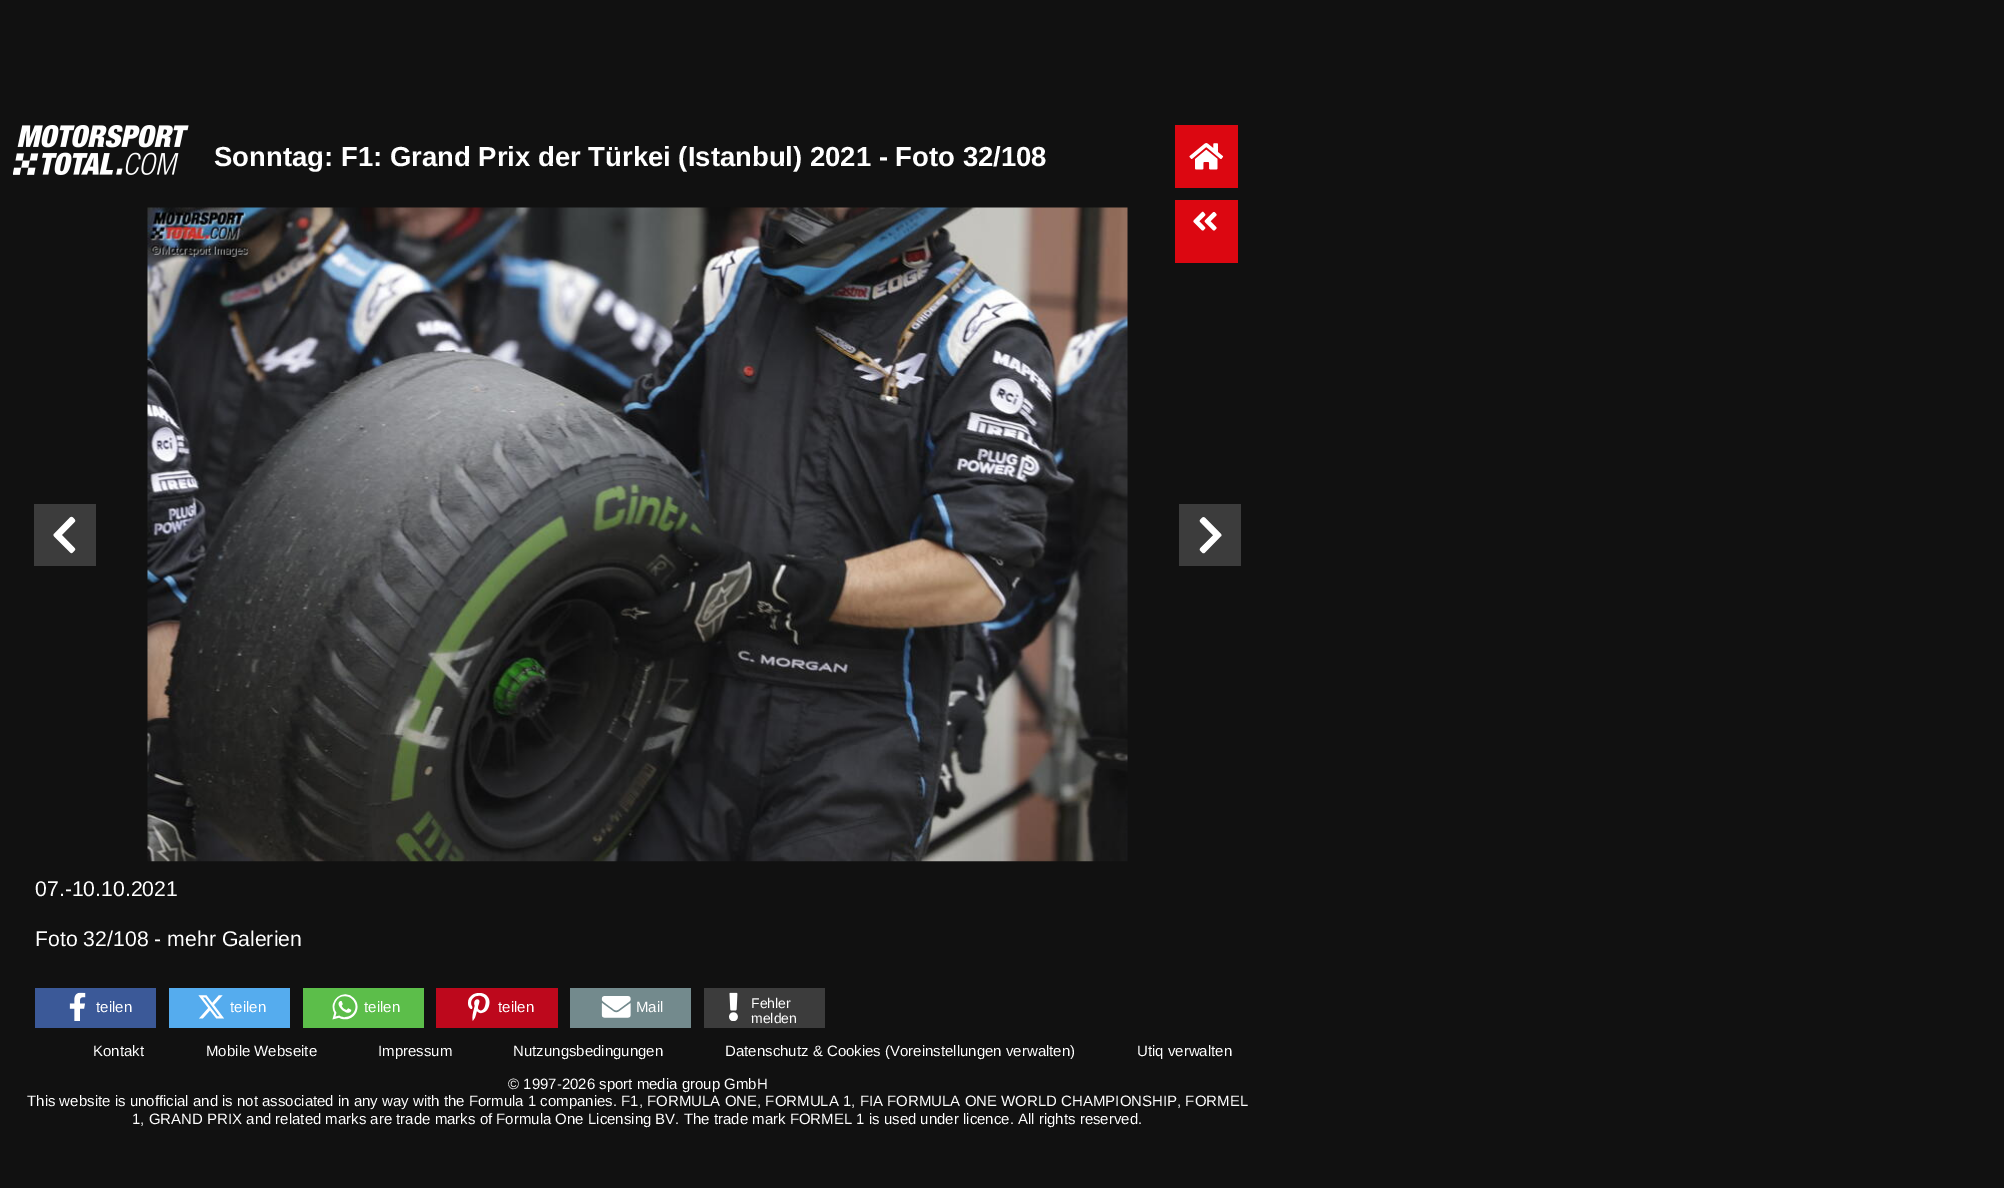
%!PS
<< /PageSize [2004 1188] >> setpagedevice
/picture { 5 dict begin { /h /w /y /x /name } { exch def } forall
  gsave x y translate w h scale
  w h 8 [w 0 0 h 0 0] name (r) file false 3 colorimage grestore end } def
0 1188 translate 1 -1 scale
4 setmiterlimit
0.067 setgray
0 0 2004 1188 rectfill
(img1.rgb) 13 125 176 50 picture
/LiberationSans-Bold [27.5 0 0 -27.5 0 0] selectfont
1 setgray
214 166 moveto (Sonntag: F1: Grand Prix der Türkei \(Istanbul\) 2021 - Foto 32/108) show
0.863 0.027 0.067 setrgbcolor
1175 125 63 63 rectfill
(img2.rgb) 1189 143 35 27 picture
1175 200 63 63 rectfill
(img3.rgb) 1193 211 24 20 picture
0.235 setgray
34 504 62 62 rectfill
(img4.rgb) 53 516 23 38 picture
(img5.rgb) 147 207 981 655 picture
1179 504 62 62 rectfill
(img6.rgb) 1199 517 23 37 picture
/LiberationSans-Regular [21.25 0 0 -21.25 0 0] selectfont
1 setgray
35 896 moveto (07.-10.10.2021) show
35 946 moveto (Foto 32/108 - mehr Galerien) show
0.231 0.349 0.596 setrgbcolor
35 988 121 40 rectfill
(img7.rgb) 69 992 17 29 picture
/LiberationSans-Regular [15 0 0 -15 0 0] selectfont
1 setgray
96 1012 moveto (teilen) show
0.333 0.675 0.933 setrgbcolor
169 988 121 40 rectfill
(img8.rgb) 198 995 26 24 picture
1 setgray
230 1012 moveto (teilen) show
0.361 0.745 0.29 setrgbcolor
303 988 121 40 rectfill
(img9.rgb) 332 994 26 26 picture
1 setgray
364 1012 moveto (teilen) show
0.741 0.031 0.11 setrgbcolor
436 988 122 40 rectfill
(img10.rgb) 468 993 22 28 picture
1 setgray
498 1012 moveto (teilen) show
0.451 0.541 0.553 setrgbcolor
570 988 121 40 rectfill
(img11.rgb) 601 996 30 22 picture
1 setgray
636 1012 moveto (Mail) show
0.235 setgray
704 988 121 40 rectfill
(img12.rgb) 729 992 9 29 picture
/LiberationSans-Regular [14 0 0 -14 0 0] selectfont
1 setgray
751 1008 moveto (Fehler) show
751 1023 moveto (melden) show
/LiberationSans-Regular [15 0 0 -15 0 0] selectfont
93 1056 moveto (Kontakt) show
206 1056 moveto (Mobile Webseite) show
378 1056 moveto (Impressum) show
513 1056 moveto (Nutzungsbedingungen) show
725 1056 moveto (Datenschutz & Cookies \(Voreinstellungen verwalten\)) show
1137 1056 moveto (Utiq verwalten) show
508 1089 moveto (© 1997-2026 sport media group GmbH) show
27 1106 moveto (This website is unofficial and is not associated in any way with the Formula 1 companies. F1, FORMULA ONE, FORMULA 1, FIA FORMULA ONE WORLD CHAMPIONSHIP, FORMEL) show
132 1124 moveto (1, GRAND PRIX and related marks are trade marks of Formula One Licensing BV. The trade mark FORMEL 1 is used under licence. All rights reserved.) show
showpage
